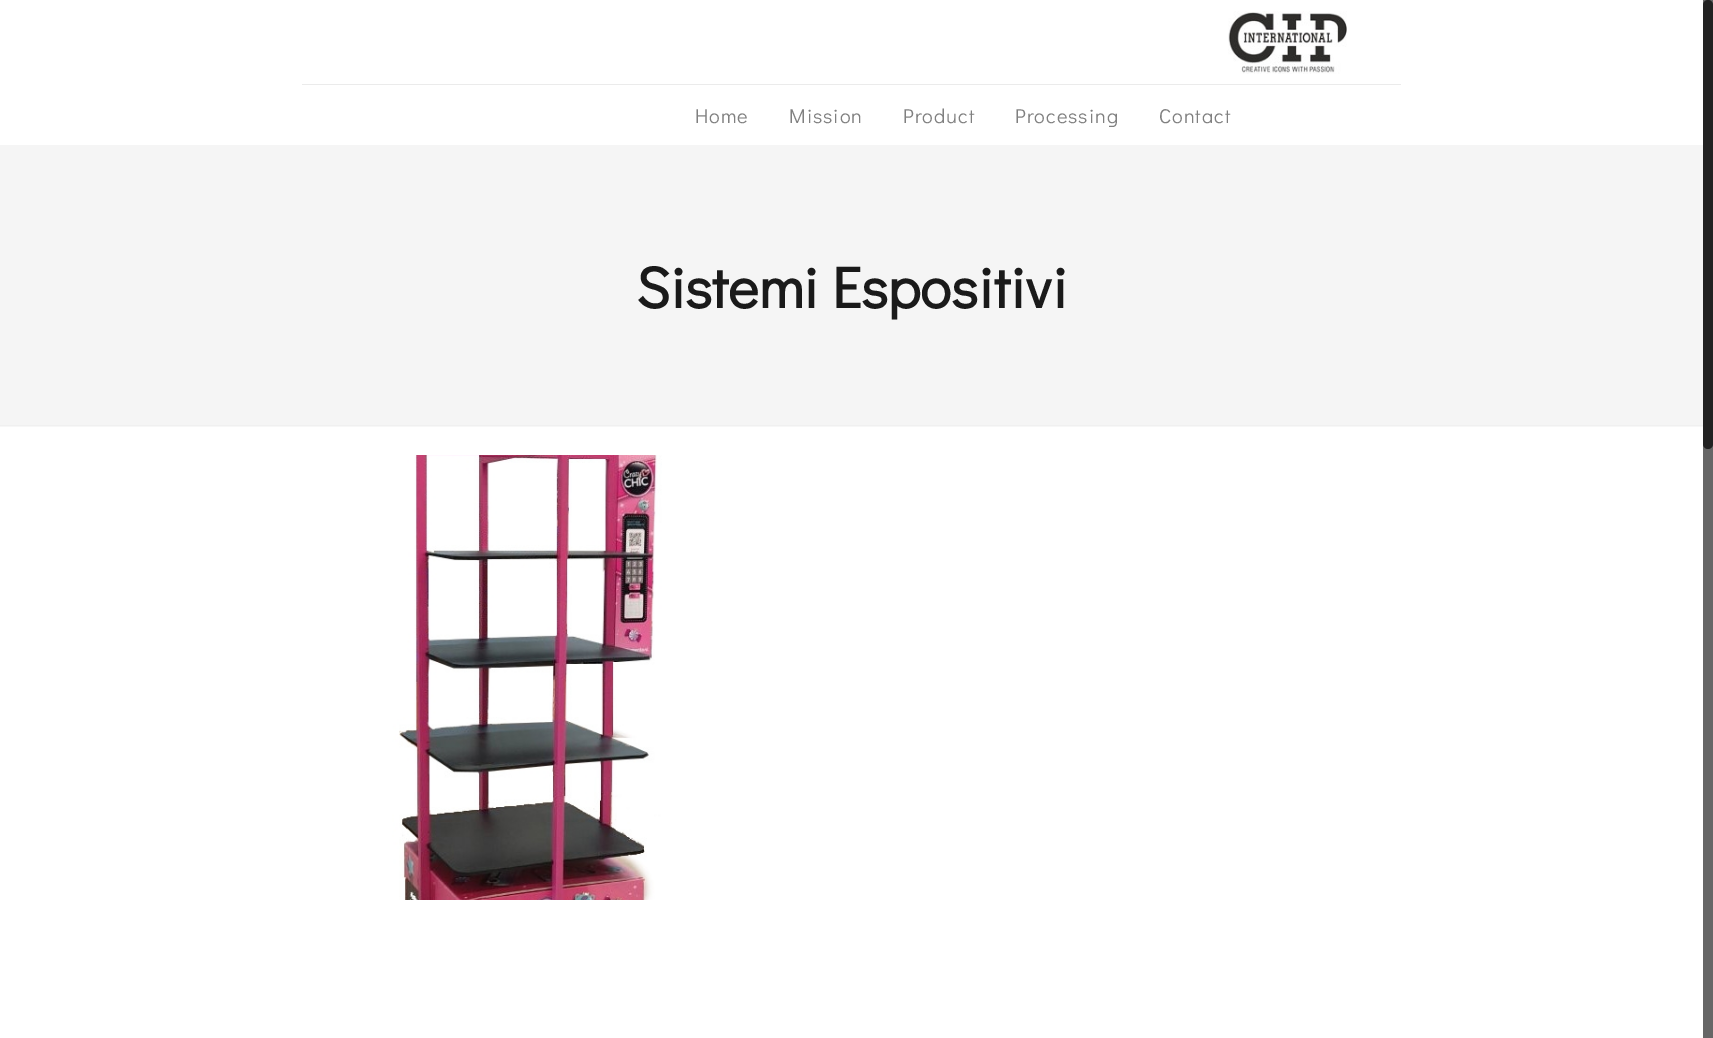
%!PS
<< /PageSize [1713 1038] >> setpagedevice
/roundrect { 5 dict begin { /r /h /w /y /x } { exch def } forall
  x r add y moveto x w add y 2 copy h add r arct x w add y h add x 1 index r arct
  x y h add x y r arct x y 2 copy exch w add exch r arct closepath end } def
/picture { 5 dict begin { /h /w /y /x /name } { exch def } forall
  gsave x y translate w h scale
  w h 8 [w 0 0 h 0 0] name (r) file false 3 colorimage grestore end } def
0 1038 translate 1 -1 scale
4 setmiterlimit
1 setgray
0 0 1713 1038 rectfill
0.922 setgray
302 84 1099 1 rectfill
(img1.rgb) 1228 11 119 63 picture
/DidactGothic-Regular [20 0 0 -20 0 0] selectfont
0.502 setgray
695 123 moveto 1 0 (Home) ashow
789 123 moveto 1 0 (Mission) ashow
903 123 moveto 1 0 (Product) ashow
1015 123 moveto 1 0 (Processing) ashow
1159 123 moveto 1 0 (Contact) ashow
0.961 setgray
0 145 1703 280 rectfill
/DidactGothic-Bold [58 0 0 -58 0 0] selectfont
0.102 setgray
636 308 moveto (Sistemi Espositivi) show
(img2.rgb) 0 425 1703 2 picture
(img3.rgb) 302 455 445 445 picture
0.4 setgray
1703 0 10 1038 rectfill
0.133 setgray
1703 0 10 449 5 roundrect fill
showpage
